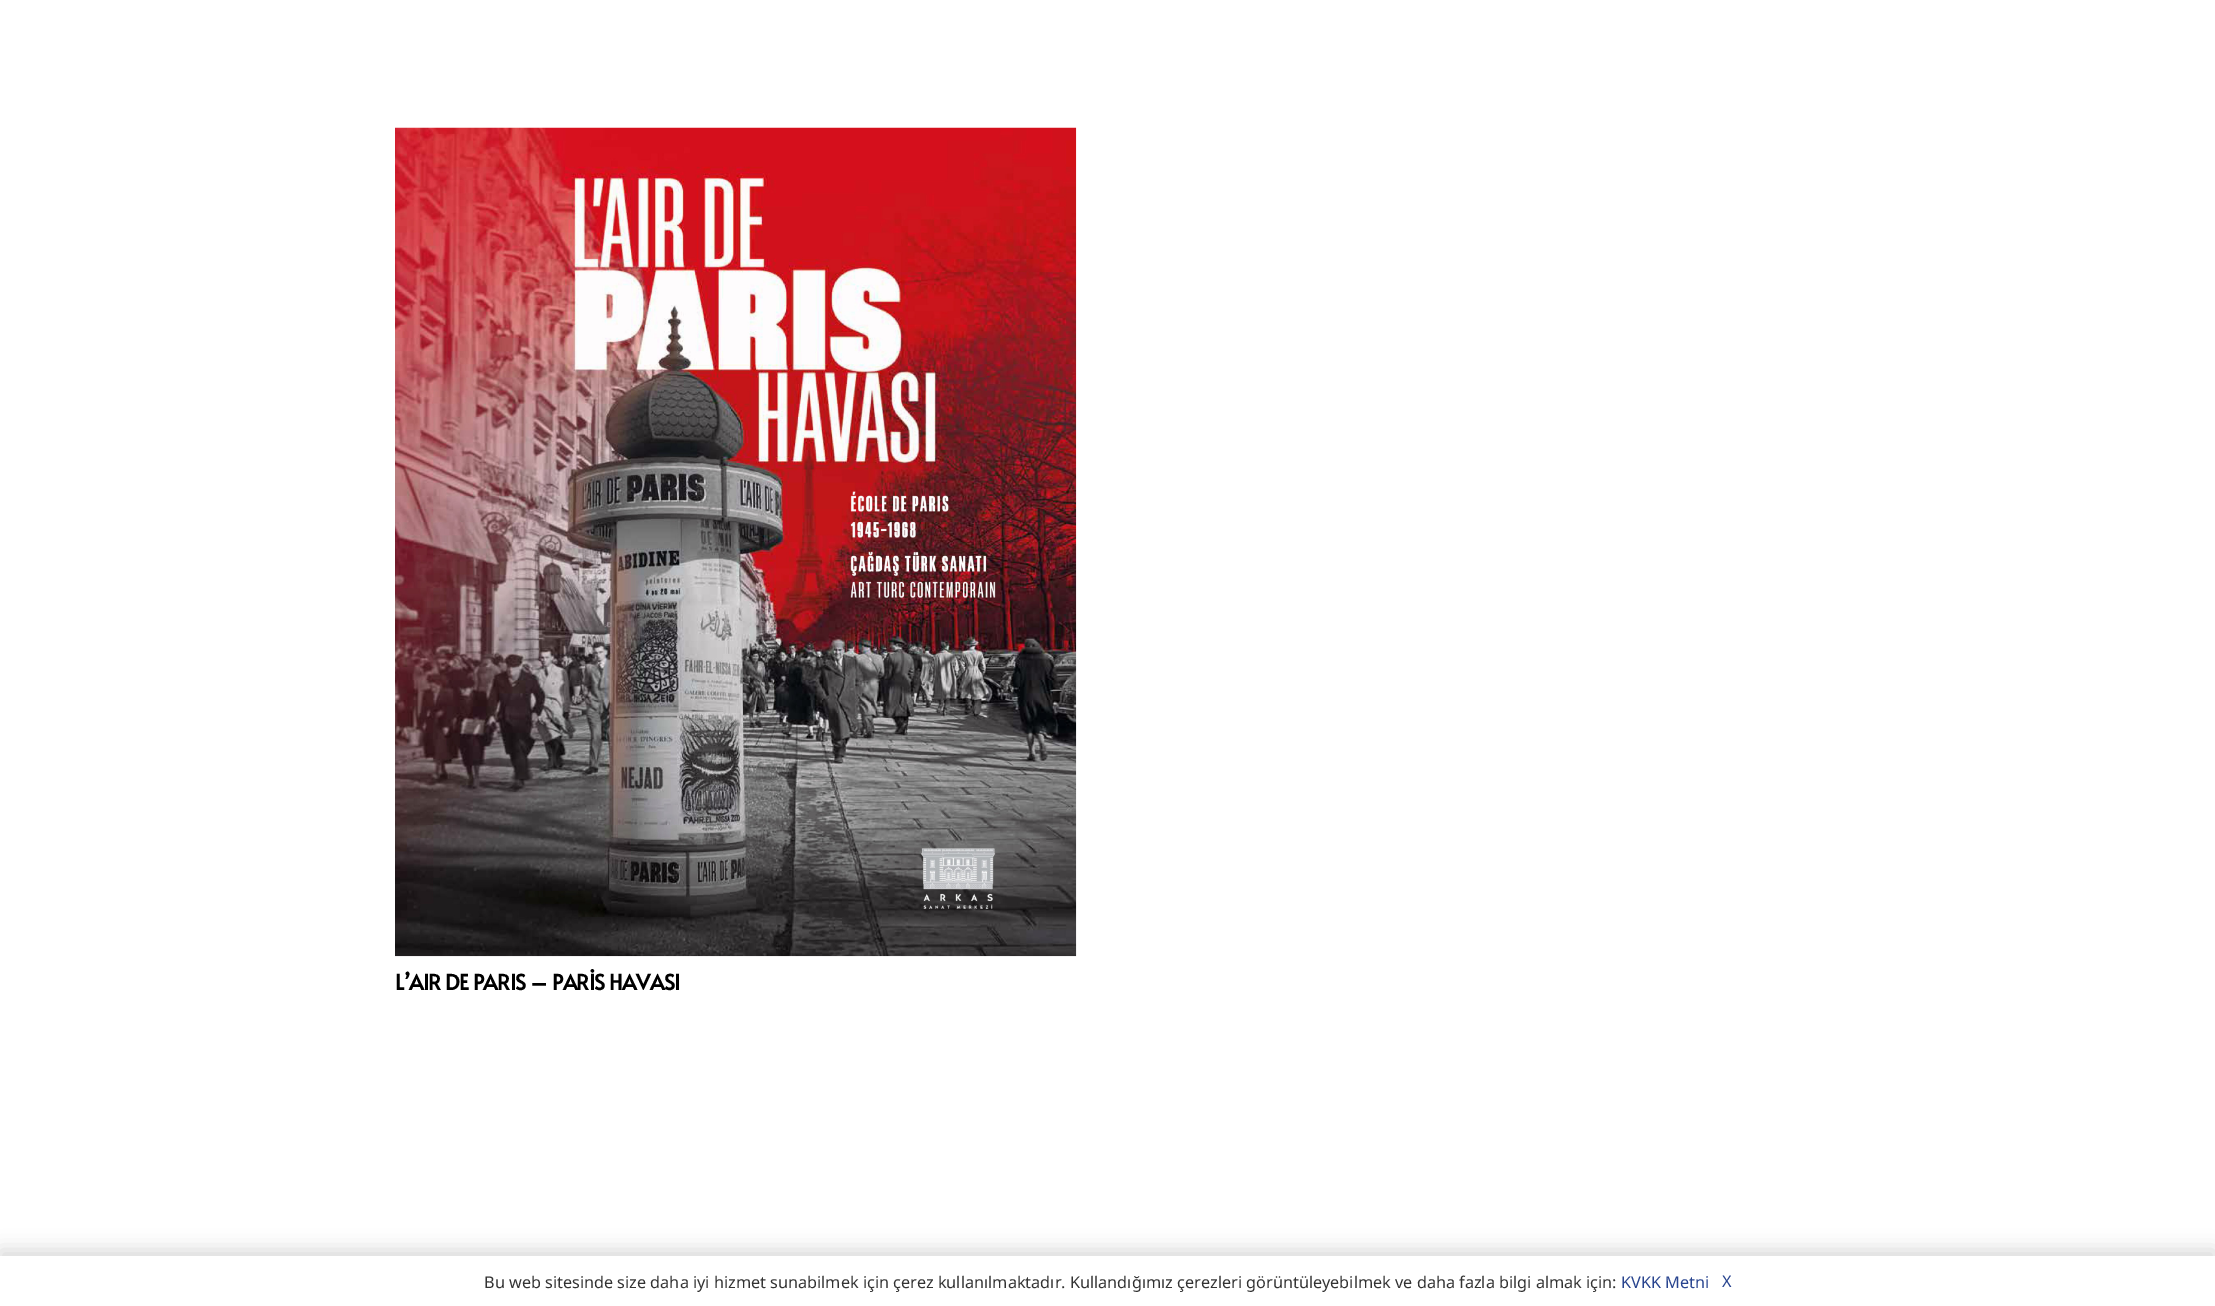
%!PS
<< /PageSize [2215 1306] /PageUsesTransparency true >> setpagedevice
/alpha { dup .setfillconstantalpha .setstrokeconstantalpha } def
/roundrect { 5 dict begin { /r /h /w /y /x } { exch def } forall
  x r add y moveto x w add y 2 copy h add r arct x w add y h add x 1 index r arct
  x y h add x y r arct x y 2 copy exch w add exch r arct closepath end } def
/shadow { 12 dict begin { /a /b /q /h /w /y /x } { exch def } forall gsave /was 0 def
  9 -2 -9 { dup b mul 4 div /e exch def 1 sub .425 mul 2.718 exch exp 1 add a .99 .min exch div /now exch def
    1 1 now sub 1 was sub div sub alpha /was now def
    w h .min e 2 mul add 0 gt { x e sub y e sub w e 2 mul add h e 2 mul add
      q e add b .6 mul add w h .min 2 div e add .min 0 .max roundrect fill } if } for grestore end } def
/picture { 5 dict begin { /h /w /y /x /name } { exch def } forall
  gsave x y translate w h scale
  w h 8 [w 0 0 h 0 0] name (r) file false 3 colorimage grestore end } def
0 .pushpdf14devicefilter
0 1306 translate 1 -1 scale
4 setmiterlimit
1 setgray
0 0 2215 1306 rectfill
(img1.rgb) 395 127 682 830 picture
/Alata-Bold [21.25 0 0 -21.25 0 0] selectfont
0 setgray
395 990 moveto -0.65 0 (L’AIR DE PARIS – PARİS HAVASI) ashow
0 1250 2215 50 0 9.5 0.15 shadow
1 setgray
0 1256 2215 50 rectfill
/NotoSans-Regular [16.25 0 0 -16.25 0 0] selectfont
0.2 setgray
484 1288 moveto (Bu web sitesinde size daha iyi hizmet sunabilmek için çerez kullanılmaktadır. Kullandığımız çerezleri görüntüleyebilmek ve daha fazla bilgi almak için:) show
0.157 0.267 0.561 setrgbcolor
1621 1288 moveto (KVKK Metni) show
1722 1287 moveto (X) show
.poppdf14devicefilter showpage
